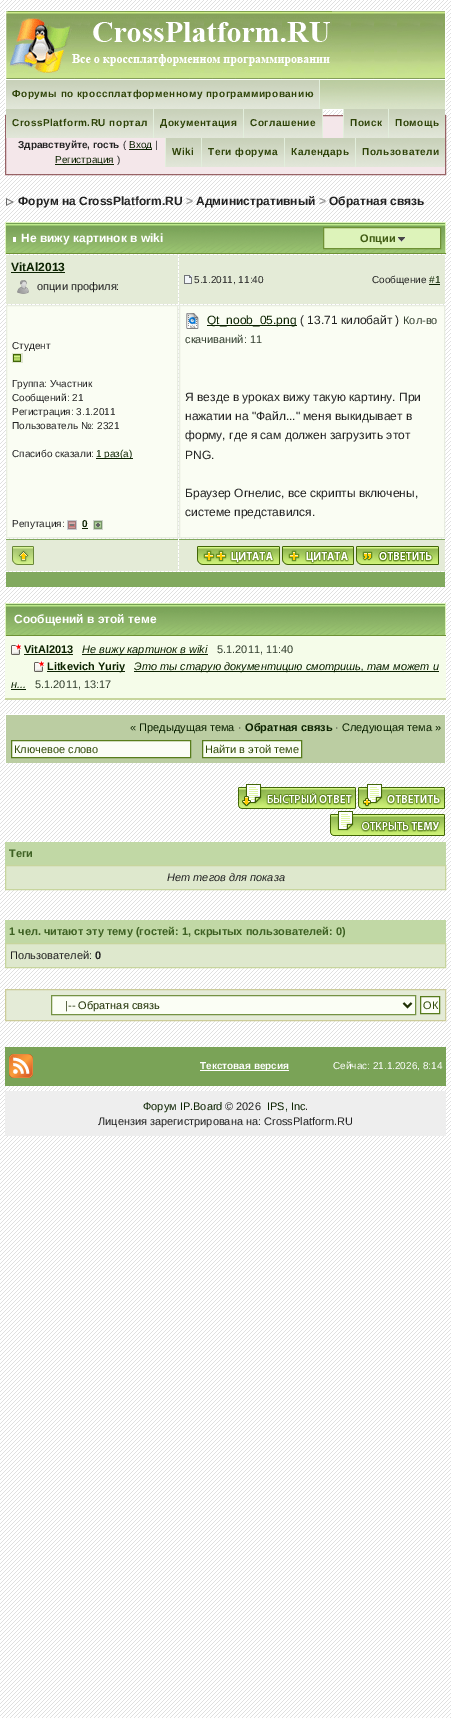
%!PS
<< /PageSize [451 1718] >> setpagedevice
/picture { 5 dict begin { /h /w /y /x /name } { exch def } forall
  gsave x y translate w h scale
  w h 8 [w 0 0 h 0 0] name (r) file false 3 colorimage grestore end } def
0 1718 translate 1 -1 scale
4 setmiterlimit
1 setgray
0 0 451 1718 rectfill
(img1.rgb) 0 0 451 1718 picture
(img2.rgb) 6 11 439 68 picture
5.5 10.5 440 69 rectstroke
(img3.rgb) 8 11 324 62 picture
(img4.rgb) 320 80 125 29 picture
445 80 1 30 rectfill
323 109 123 1 rectfill
5 80 1 30 rectfill
(img5.rgb) 6 80 313 29 picture
0.886 0.933 0.863 setrgbcolor
319 80 1 29 rectfill
/LiberationSans-Bold [10 0 0 -10 0 0] selectfont
0.18 0.263 0.031 setrgbcolor
12 97 moveto 0.5 0 (Форумы по кроссплатформенному программированию) ashow
0.957 0.906 0.918 setrgbcolor
newpath 5.5 115.5 moveto 445.5 115.5 lineto 445.5 174.5 lineto 5.5 174.5 lineto closepath gsave fill grestore
0.596 0.384 0.396 setrgbcolor
stroke
(img6.rgb) 6 109 147 29 picture
0.886 0.933 0.863 setrgbcolor
153 109 1 29 rectfill
0.18 0.263 0.031 setrgbcolor
12 126 moveto 0.5 0 (CrossPlatform.RU портал) ashow
(img7.rgb) 154 109 89 29 picture
0.886 0.933 0.863 setrgbcolor
243 109 1 29 rectfill
0.18 0.263 0.031 setrgbcolor
160 126 moveto 0.5 0 (Документация) ashow
(img8.rgb) 244 109 78 29 picture
0.886 0.933 0.863 setrgbcolor
322 109 1 29 rectfill
0.18 0.263 0.031 setrgbcolor
250 126 moveto 0.5 0 (Соглашение) ashow
(img9.rgb) 344 109 44 29 picture
0.886 0.933 0.863 setrgbcolor
343 109 1 29 rectfill
0.18 0.263 0.031 setrgbcolor
350 126 moveto 0.5 0 (Поиск) ashow
(img10.rgb) 389 109 56 29 picture
0.886 0.933 0.863 setrgbcolor
388 109 1 29 rectfill
0.18 0.263 0.031 setrgbcolor
395 126 moveto 0.5 0 (Помощь) ashow
(img11.rgb) 166 138 35 29 picture
0.886 0.933 0.863 setrgbcolor
165 138 1 29 rectfill
0.18 0.263 0.031 setrgbcolor
172 155 moveto 0.5 0 (Wiki) ashow
(img12.rgb) 202 138 82 29 picture
0.886 0.933 0.863 setrgbcolor
201 138 1 29 rectfill
0.18 0.263 0.031 setrgbcolor
208 155 moveto 0.5 0 (Теги форума) ashow
(img13.rgb) 285 138 70 29 picture
0.886 0.933 0.863 setrgbcolor
284 138 1 29 rectfill
0.18 0.263 0.031 setrgbcolor
291 155 moveto 0.5 0 (Календарь) ashow
(img7.rgb) 356 138 89 29 picture
0.886 0.933 0.863 setrgbcolor
355 138 1 29 rectfill
0.18 0.263 0.031 setrgbcolor
362 155 moveto 0.5 0 (Пользователи) ashow
0.133 setgray
18 148 moveto (Здравствуйте, гость) show
/LiberationSans-Regular [10 0 0 -10 0 0] selectfont
123 148 moveto (\() show
0.043 0.133 0 setrgbcolor
129 149 23 1 rectfill
129 148 moveto (Вход) show
0.133 setgray
155 148 moveto (|) show
0.043 0.133 0 setrgbcolor
55 164 59 1 rectfill
55 163 moveto (Регистрация) show
0.133 setgray
117 163 moveto (\)) show
(img14.rgb) 6 198 8 8 picture
/LiberationSans-Bold [12 0 0 -12 0 0] selectfont
18 205 moveto (Форум на CrossPlatform.RU) show
0.6 setgray
186 205 moveto (>) show
0.133 setgray
196 205 moveto (Административный) show
0.6 setgray
319 205 moveto (>) show
0.133 setgray
329 205 moveto (Обратная связь) show
(img15.rgb) 6 223 439 30 picture
0.867 0.953 0.729 setrgbcolor
5 222 441 1 rectfill
445 222 1 32 rectfill
0.431 0.569 0.204 setrgbcolor
5 253 441 1 rectfill
0.867 0.953 0.729 setrgbcolor
5 222 1 32 rectfill
1 setgray
13 237 3 5 rectfill
21 242 moveto (Не вижу картинок в wiki) show
0.867 0.953 0.729 setrgbcolor
newpath 323.5 227.5 moveto 440.5 227.5 lineto 440.5 248.5 lineto 323.5 248.5 lineto closepath gsave fill grestore
0.431 0.569 0.204 setrgbcolor
stroke
/LiberationSans-Bold [11 0 0 -11 0 0] selectfont
0.251 0.357 0.075 setrgbcolor
360 242 moveto (Опции) show
(img16.rgb) 398 237 7 5 picture
0.894 0.922 0.843 setrgbcolor
6 255 172 49 rectfill
/LiberationSans-Bold [12 0 0 -12 0 0] selectfont
0.043 0.133 0 setrgbcolor
11 271 moveto (VitAl2013) show
11 272 54 1 rectfill
(img17.rgb) 17 280 12 14 picture
/LiberationSans-Regular [11 0 0 -11 0 0] selectfont
0.133 setgray
37 290 moveto (опции профиля:) show
0.894 0.922 0.843 setrgbcolor
179 255 266 49 rectfill
(img18.rgb) 184 275 8 9 picture
/LiberationSans-Regular [10 0 0 -10 0 0] selectfont
0.133 setgray
194 283 moveto (5.1.2011, 11:40) show
372 283 moveto (Сообщение) show
0.043 0.133 0 setrgbcolor
429 283 moveto (#1) show
429 284 11 1 rectfill
0.98 0.992 0.953 setrgbcolor
newpath 6.5 305.5 moveto 177.5 305.5 lineto 177.5 537.5 lineto 6.5 537.5 lineto closepath gsave fill grestore
0.91 0.929 0.878 setrgbcolor
stroke
0.133 setgray
12 349 moveto (Студент) show
(img19.rgb) 12 353 11 10 picture
12 387 moveto (Группа: Участник) show
12 401 moveto (Сообщений: 21) show
12 415 moveto (Регистрация: 3.1.2011) show
12 429 moveto (Пользователь №: 2321) show
12 457 moveto (Спасибо сказали:) show
0.043 0.133 0 setrgbcolor
96 458 37 1 rectfill
96 457 moveto (1 раз\(а\)) show
0.133 setgray
12 527 moveto (Репутация:) show
(img20.rgb) 67 520 10 10 picture
/LiberationSans-Bold [10 0 0 -10 0 0] selectfont
0.043 0.133 0 setrgbcolor
82 527 moveto (0) show
82 528 6 1 rectfill
(img21.rgb) 93 520 10 10 picture
0.98 0.992 0.953 setrgbcolor
newpath 179.5 305.5 moveto 444.5 305.5 lineto 444.5 537.5 lineto 179.5 537.5 lineto closepath gsave fill grestore
0.91 0.929 0.878 setrgbcolor
stroke
(img22.rgb) 186 313 13 16 picture
0.043 0.133 0 setrgbcolor
207 325 90 1 rectfill
/LiberationSans-Regular [12 0 0 -12 0 0] selectfont
207 324 moveto (Qt_noob_05.png) show
0.133 setgray
300 324 moveto (\( 13.71 килобайт \)) show
/LiberationSans-Regular [11 0 0 -11 0 0] selectfont
0.196 0.243 0.18 setrgbcolor
403 324 moveto (Кол-во) show
185 343 moveto (скачиваний: 11) show
/LiberationSans-Regular [12 0 0 -12 0 0] selectfont
0.133 setgray
185 401 moveto (Я везде в уроках вижу такую картину. При) show
185 420 moveto (нажатии на "Файл..." меня выкидывает в) show
185 439 moveto (форму, где я сам должен загрузить этот) show
185 459 moveto (PNG.) show
185 497 moveto (Браузер Огнелис, все скрипты включены,) show
185 516 moveto (системе представился.) show
0.894 0.922 0.843 setrgbcolor
6 540 172 31 rectfill
0.506 0.663 0.369 setrgbcolor
6 539 172 1 rectfill
(img23.rgb) 12 546 22 19 picture
0.894 0.922 0.843 setrgbcolor
179 540 266 31 rectfill
0.506 0.663 0.369 setrgbcolor
179 539 266 1 rectfill
(img24.rgb) 197 546 83 19 picture
(img25.rgb) 282 546 72 19 picture
(img26.rgb) 356 546 83 19 picture
6 572 439 15 rectfill
(img27.rgb) 6 604 439 31 picture
0.867 0.953 0.729 setrgbcolor
5 603 441 1 rectfill
445 603 1 33 rectfill
0.431 0.569 0.204 setrgbcolor
5 635 441 1 rectfill
0.867 0.953 0.729 setrgbcolor
5 603 1 33 rectfill
/LiberationSans-Bold [12 0 0 -12 0 0] selectfont
1 setgray
14 623 moveto (Сообщений в этой теме) show
0.961 0.988 0.914 setrgbcolor
5 636 441 62 rectfill
(img28.rgb) 11 644 10 11 picture
/LiberationSans-Bold [11 0 0 -11 0 0] selectfont
0.043 0.133 0 setrgbcolor
24 653 moveto (VitAl2013) show
24 654 49 1 rectfill
82 654 126 1 rectfill
/LiberationSans-Italic [11 0 0 -11 0 0] selectfont
82 653 moveto (Не вижу картинок в wiki) show
/LiberationSans-Regular [11 0 0 -11 0 0] selectfont
0.196 0.243 0.18 setrgbcolor
217 653 moveto (5.1.2011, 11:40) show
(img28.rgb) 34 661 10 11 picture
0.043 0.133 0 setrgbcolor
47 671 78 1 rectfill
/LiberationSans-Bold [11 0 0 -11 0 0] selectfont
47 670 moveto (Litkevich Yuriy) show
134 671 305 1 rectfill
/LiberationSans-Italic [11 0 0 -11 0 0] selectfont
134 670 moveto (Это ты старую документицию смотришь, там может и) show
11 688 moveto (н...) show
11 689 15 1 rectfill
/LiberationSans-Regular [11 0 0 -11 0 0] selectfont
0.196 0.243 0.18 setrgbcolor
35 688 moveto (5.1.2011, 13:17) show
0.78 0.835 0.616 setrgbcolor
5 698 441 2 rectfill
0.733 0.804 0.635 setrgbcolor
6 715 439 48 rectfill
1 setgray
5 714 441 1 rectfill
445 714 1 49 rectfill
5 714 1 49 rectfill
0.043 0.133 0 setrgbcolor
130 731 moveto (« Предыдущая тема) show
0.133 setgray
238 731 moveto (·) show
/LiberationSans-Bold [11 0 0 -11 0 0] selectfont
0.043 0.133 0 setrgbcolor
245 731 moveto (Обратная связь) show
/LiberationSans-Regular [11 0 0 -11 0 0] selectfont
0.133 setgray
335 731 moveto (·) show
0.043 0.133 0 setrgbcolor
342 731 moveto (Следующая тема ») show
0.984 0.992 0.969 setrgbcolor
newpath 11.5 740.5 moveto 190.5 740.5 lineto 190.5 757.5 lineto 11.5 757.5 lineto closepath gsave fill grestore
0.345 0.486 0.114 setrgbcolor
stroke
0.188 0.29 0.027 setrgbcolor
14 753 moveto (Ключевое слово) show
0.984 0.996 0.961 setrgbcolor
newpath 202.5 740.5 moveto 301.5 740.5 lineto 301.5 757.5 lineto 202.5 757.5 lineto closepath gsave fill grestore
0.345 0.486 0.114 setrgbcolor
stroke
0.188 0.29 0.027 setrgbcolor
205 753 moveto (Найти в этой теме) show
(img29.rgb) 237 784 119 25 picture
(img30.rgb) 357 783 88 26 picture
(img31.rgb) 330 811 115 25 picture
0.757 0.847 0.647 setrgbcolor
5 842 441 23 rectfill
/LiberationSans-Bold [11 0 0 -11 0 0] selectfont
0.243 0.38 0.137 setrgbcolor
9 857 moveto (Теги) show
0.871 0.91 0.804 setrgbcolor
newpath 5.5 865.5 moveto 445.5 865.5 lineto 445.5 889.5 lineto 5.5 889.5 lineto closepath gsave fill grestore
0.78 0.835 0.616 setrgbcolor
stroke
/LiberationSans-Italic [11 0 0 -11 0 0] selectfont
0.133 setgray
167 881 moveto (Нет тегов для показа) show
0.757 0.847 0.647 setrgbcolor
5 920 441 23 rectfill
/LiberationSans-Bold [11 0 0 -11 0 0] selectfont
0.243 0.38 0.137 setrgbcolor
9 935 moveto (1 чел. читают эту тему \(гостей: 1, скрытых пользователей: 0\)) show
0.871 0.91 0.804 setrgbcolor
newpath 5.5 943.5 moveto 445.5 943.5 lineto 445.5 967.5 lineto 5.5 967.5 lineto closepath gsave fill grestore
0.78 0.835 0.616 setrgbcolor
stroke
/LiberationSans-Regular [11 0 0 -11 0 0] selectfont
0.133 setgray
10 959 moveto (Пользователей:) show
/LiberationSans-Bold [11 0 0 -11 0 0] selectfont
95 959 moveto (0) show
0.894 0.922 0.843 setrgbcolor
newpath 5.5 989.5 moveto 445.5 989.5 lineto 445.5 1020.5 lineto 5.5 1020.5 lineto closepath gsave fill grestore
0.8 0.8 0.6 setrgbcolor
stroke
0.984 0.996 0.961 setrgbcolor
newpath 51.5 995.5 moveto 415.5 995.5 lineto 415.5 1014.5 lineto 51.5 1014.5 lineto closepath gsave fill grestore
0.455 0.573 0.267 setrgbcolor
stroke
0.125 0.192 0.016 setrgbcolor
2 setlinewidth
newpath 403.5 1003 moveto 407.5 1007 lineto 411.5 1003 lineto stroke
/LiberationSans-Regular [11 0 0 -11 0 0] selectfont
65 1009 moveto (|-- Обратная связь) show
0.984 0.996 0.961 setrgbcolor
newpath 420.5 996.5 moveto 439.5 996.5 lineto 439.5 1013.5 lineto 420.5 1013.5 lineto closepath gsave fill grestore
0.345 0.486 0.114 setrgbcolor
1 setlinewidth
stroke
0.188 0.29 0.027 setrgbcolor
423 1009 moveto (ОК) show
0.478 0.639 0.341 setrgbcolor
5 1047 441 39 rectfill
(img32.rgb) 9 1054 24 24 picture
1 setgray
200 1070 89 1 rectfill
/LiberationSans-Bold [10 0 0 -10 0 0] selectfont
200 1069 moveto (Текстовая версия) show
/LiberationSans-Regular [10 0 0 -10 0 0] selectfont
333 1069 moveto (Сейчас: 21.1.2026, 8:14) show
0.933 setgray
5 1091 441 45 rectfill
/LiberationSans-Regular [11 0 0 -11 0 0] selectfont
0.043 0.133 0 setrgbcolor
143 1110 moveto (Форум IP.Board) show
0.133 setgray
225 1110 moveto (© 2026) show
0.043 0.133 0 setrgbcolor
267 1110 moveto (IPS, Inc) show
0.133 setgray
305 1110 moveto (.) show
98 1125 moveto (Лицензия зарегистрирована на: CrossPlatform.RU) show
showpage
